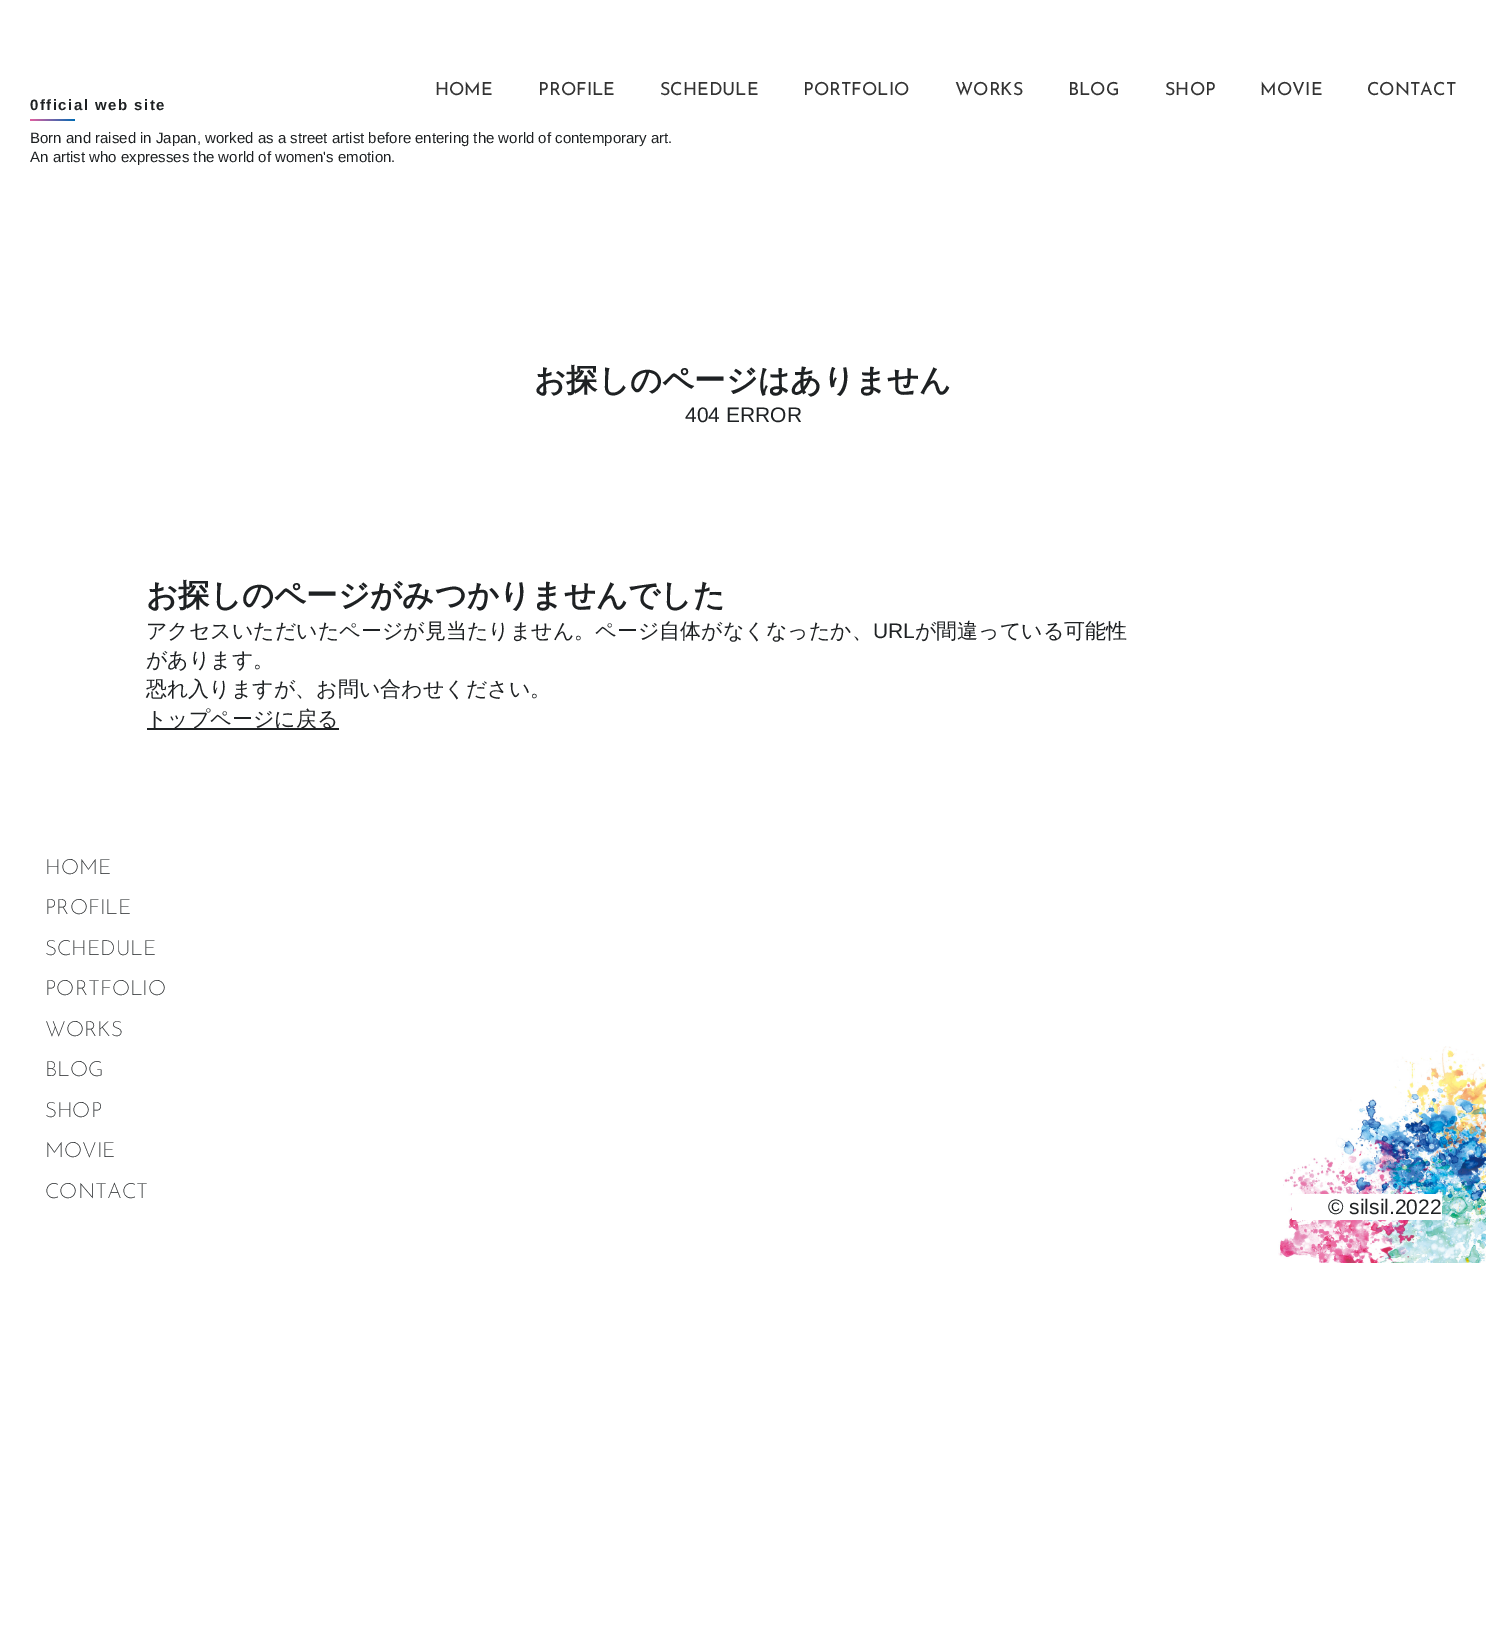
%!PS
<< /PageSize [1486 1642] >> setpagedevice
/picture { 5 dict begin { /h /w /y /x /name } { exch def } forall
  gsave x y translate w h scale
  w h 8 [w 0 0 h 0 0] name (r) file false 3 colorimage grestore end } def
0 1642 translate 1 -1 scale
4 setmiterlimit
1 setgray
0 0 1486 1642 rectfill
/JosefinSans-Regular [18 0 0 -18 0 0] selectfont
0.2 setgray
435 95 moveto (HOME) show
538 95 moveto (PROFILE) show
660 95 moveto (SCHEDULE) show
803 95 moveto (PORTFOLIO) show
955 95 moveto (WORKS) show
1068 95 moveto (BLOG) show
1165 95 moveto (SHOP) show
1260 95 moveto (MOVIE) show
1367 95 moveto (CONTACT) show
/LiberationSans-Bold [15 0 0 -15 0 0] selectfont
0.118 0.129 0.137 setrgbcolor
30 110 moveto 1.5 0 (0fficial web site) ashow
gsave newpath 30 119 moveto 75 119 lineto 75 121 lineto 30 121 lineto closepath clip newpath
<< /ShadingType 2 /ColorSpace /DeviceRGB /Coords [30 119 75 119] /Extend [true true] /Function << /FunctionType 2 /Domain [0 1] /C0 [0.886 0.376 0.627] /C1 [0 0.416 0.698] /N 1 >> >> shfill grestore
/LiberationSans-Regular [15 0 0 -15 0 0] selectfont
30 143 moveto (Born and raised in Japan, worked as a street artist before entering the world of contemporary art.) show
30 162 moveto (An artist who expresses the world of women's emotion.) show
/WenQuanYiZenHei-Bold [31.5 0 0 -31.5 0 0] selectfont
534 391 moveto (お探しのページはありません) show
/LiberationSans-Regular [21 0 0 -21 0 0] selectfont
685 422 moveto (404 ERROR) show
/WenQuanYiZenHei-Bold [31.5 0 0 -31.5 0 0] selectfont
146 606 moveto (お探しのページがみつかりませんでした) show
/WenQuanYiZenHei-Medium [21 0 0 -21 0 0] selectfont
146 638 moveto (アクセスいただいたページが見当たりません。ページ自体がなくなったか、) show
/LiberationSans-Regular [21 0 0 -21 0 0] selectfont
873 638 moveto (URL) show
/WenQuanYiZenHei-Medium [21 0 0 -21 0 0] selectfont
915 638 moveto (が間違っている可能性) show
146 667 moveto (があります。) show
146 696 moveto (恐れ入りますが、お問い合わせください。) show
147 728 192 2 rectfill
146 726 moveto (トップページに戻る) show
(img1.rgb) 1278 1046 208 217 picture
/JosefinSans-ExtraLight [21 0 0 -21 0 0] selectfont
45 874 moveto (HOME) show
45 914 moveto (PROFILE) show
45 955 moveto (SCHEDULE) show
45 995 moveto (PORTFOLIO) show
45 1036 moveto (WORKS) show
45 1076 moveto (BLOG) show
45 1117 moveto (SHOP) show
45 1157 moveto (MOVIE) show
45 1198 moveto (CONTACT) show
1 setgray
1292 1194 150 26 rectfill
/LiberationSans-Regular [21 0 0 -21 0 0] selectfont
0.118 0.129 0.137 setrgbcolor
1328 1214 moveto (© silsil.2022) show
showpage
